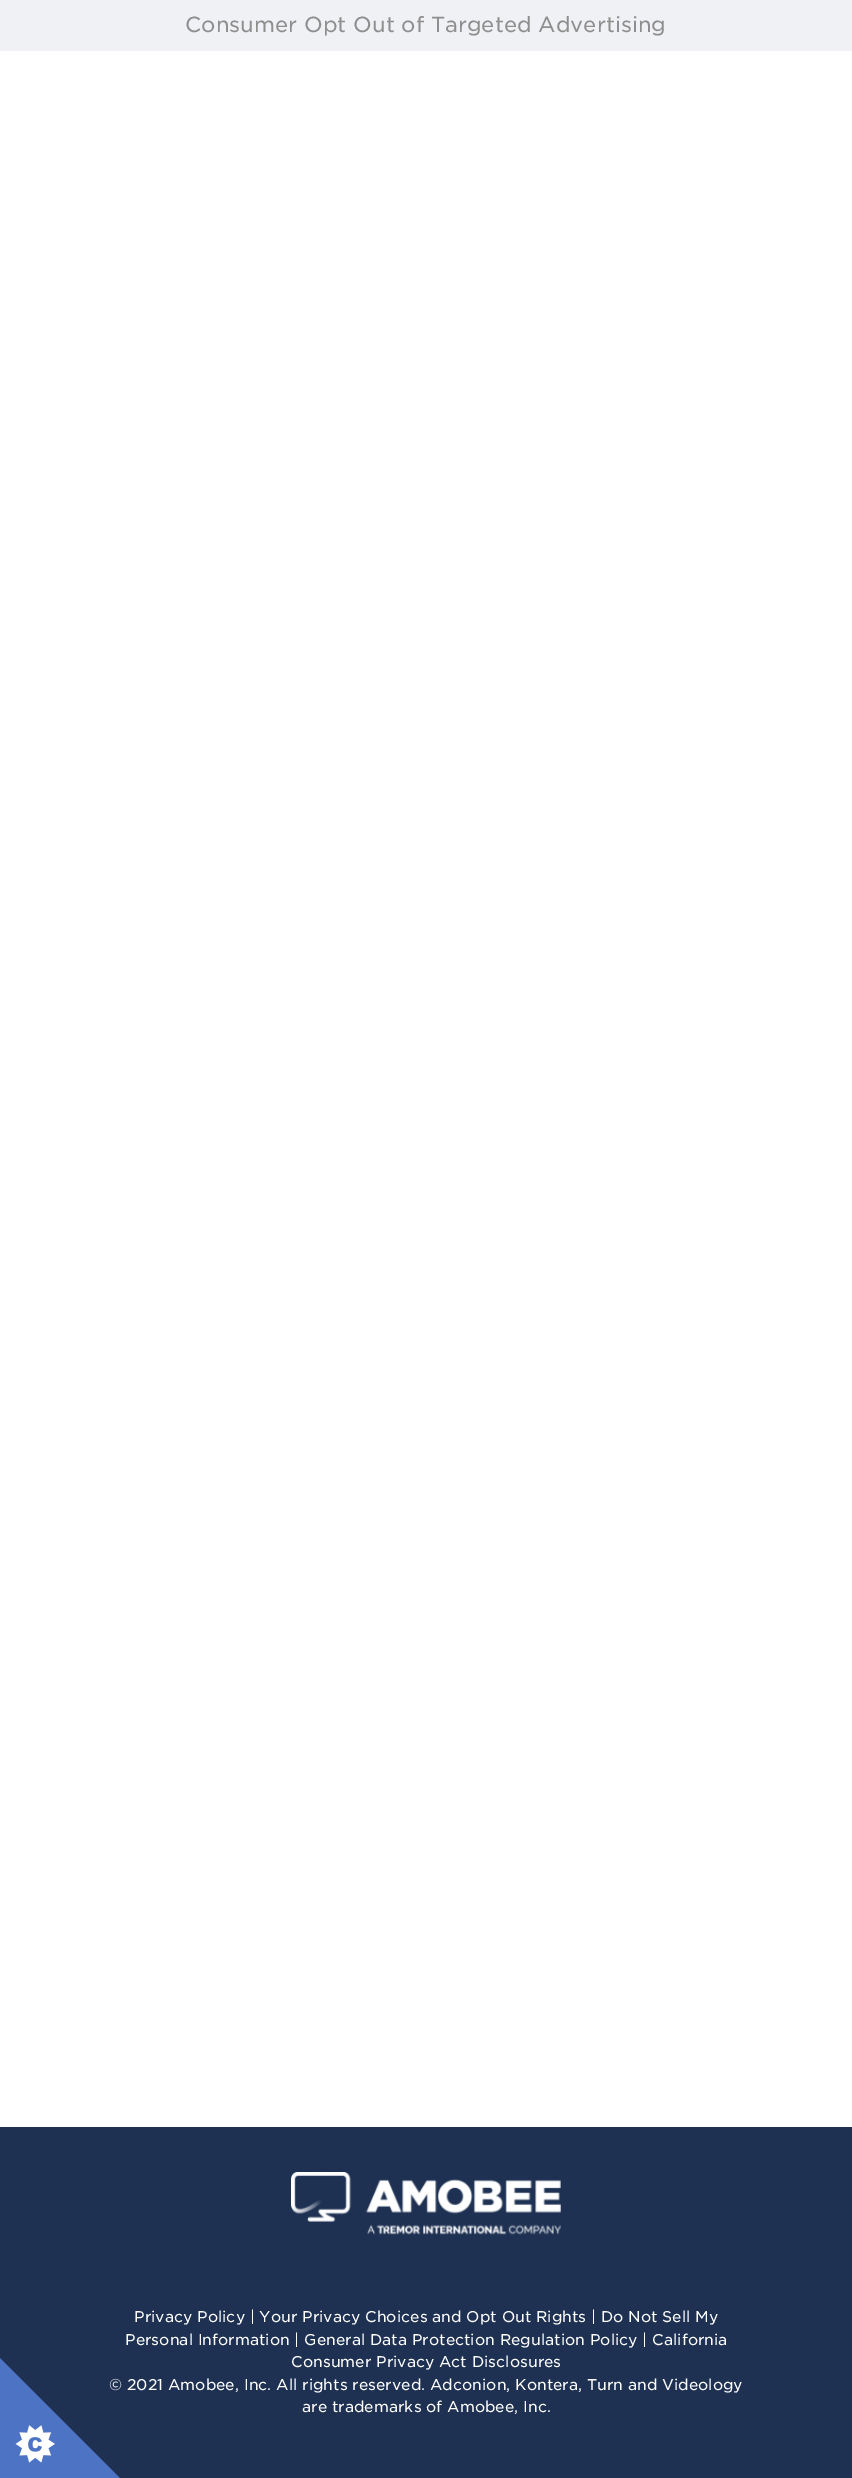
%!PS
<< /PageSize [852 2478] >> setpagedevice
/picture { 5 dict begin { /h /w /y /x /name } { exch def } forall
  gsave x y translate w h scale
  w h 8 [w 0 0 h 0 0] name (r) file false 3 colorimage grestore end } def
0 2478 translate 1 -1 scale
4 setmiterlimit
1 setgray
0 0 852 2478 rectfill
0.941 0.945 0.961 setrgbcolor
0 0 852 51 rectfill
/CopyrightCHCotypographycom-Light [21 0 0 -21 0 0] selectfont
0.565 0.561 0.561 setrgbcolor
185 32 moveto (Consumer Opt Out of Targeted Advertising) show
0.118 0.192 0.322 setrgbcolor
0 2127 852 351 rectfill
/CopyrightCHCotypographycom-Light [15 0 0 -15 0 0] selectfont
1 setgray
109 2390 moveto (© 2021 Amobee, Inc. All rights reserved. Adconion, Kontera, Turn and Videology) show
(img1.rgb) 0 2358 120 120 picture
(img2.rgb) 291 2172 270 63 picture
134 2322 moveto (Privacy Policy | Your Privacy Choices and Opt Out Rights | Do Not Sell My) show
125 2345 moveto (Personal Information | General Data Protection Regulation Policy | California) show
291 2367 moveto (Consumer Privacy Act Disclosures) show
302 2412 moveto (are trademarks of Amobee, Inc.) show
showpage
